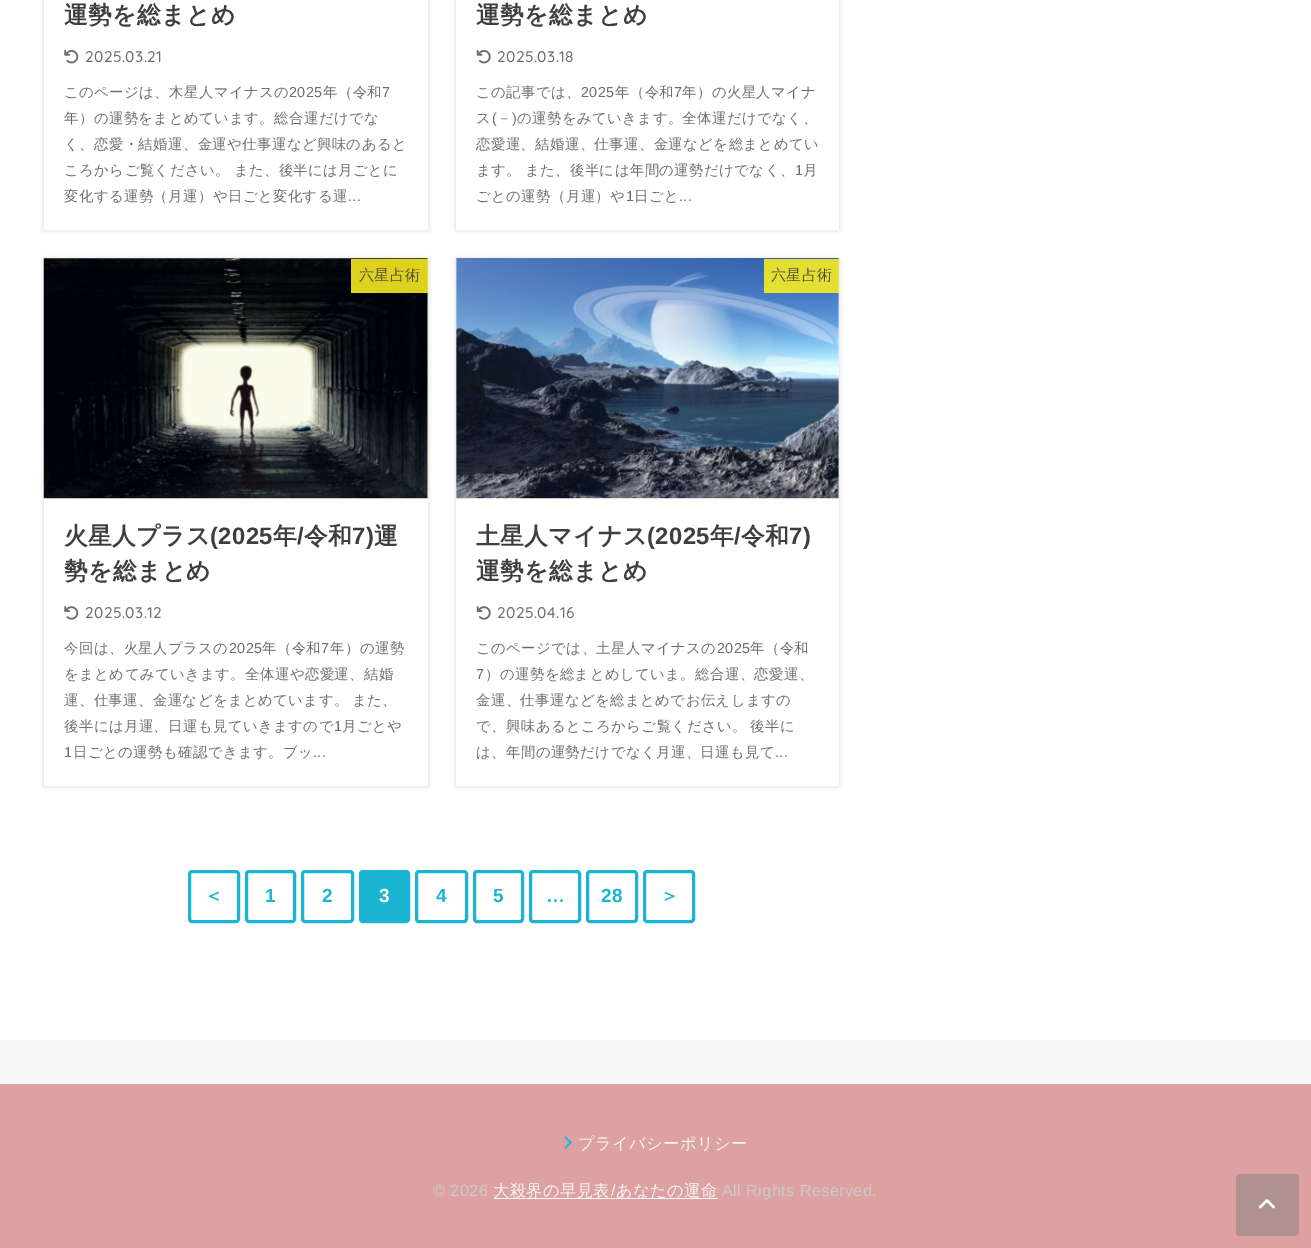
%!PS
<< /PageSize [1311 1248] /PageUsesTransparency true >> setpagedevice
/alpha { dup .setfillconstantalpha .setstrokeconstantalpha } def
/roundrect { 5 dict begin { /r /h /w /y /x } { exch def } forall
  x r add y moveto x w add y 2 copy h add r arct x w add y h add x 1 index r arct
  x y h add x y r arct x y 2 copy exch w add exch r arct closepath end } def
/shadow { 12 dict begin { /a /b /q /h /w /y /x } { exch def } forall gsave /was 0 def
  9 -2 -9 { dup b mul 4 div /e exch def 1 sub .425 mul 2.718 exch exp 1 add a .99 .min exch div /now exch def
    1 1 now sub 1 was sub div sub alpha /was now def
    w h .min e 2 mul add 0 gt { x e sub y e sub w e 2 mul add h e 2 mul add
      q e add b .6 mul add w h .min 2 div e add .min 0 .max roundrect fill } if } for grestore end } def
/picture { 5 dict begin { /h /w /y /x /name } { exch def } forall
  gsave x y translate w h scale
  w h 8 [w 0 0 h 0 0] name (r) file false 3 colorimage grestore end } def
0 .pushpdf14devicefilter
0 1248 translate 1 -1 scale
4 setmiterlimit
0.969 setgray
0 0 1311 1248 rectfill
1 setgray
0 0 1311 1040 rectfill
gsave
newpath 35 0 moveto 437 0 lineto 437 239 lineto 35 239 lineto closepath 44 -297 moveto 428 -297 lineto 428 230 lineto 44 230 lineto closepath eoclip newpath
0 setgray
44 -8 384 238 0 2.5 0.15 shadow
grestore
/WenQuanYiZenHei-Bold [23.75 0 0 -23.75 0 0] selectfont
0.243 setgray
64 23 moveto 0.4 0 (運勢を総まとめ) ashow
(img1.rgb) 64 50 15 14 picture
/Quicksand-Medium [15.5 0 0 -15.5 0 0] selectfont
0.431 setgray
85 62 moveto 0.4 0 (2025.03.21) ashow
/WenQuanYiZenHei-Medium [14.4 0 0 -14.4 0 0] selectfont
64 97 moveto 0.4 0 (このページは、木星人マイナスの) ashow
/LiberationSans-Regular [14.4 0 0 -14.4 0 0] selectfont
289 97 moveto 0.4 0 (2025) ashow
/WenQuanYiZenHei-Medium [14.4 0 0 -14.4 0 0] selectfont
323 97 moveto 0.4 0 (年（令和) ashow
/LiberationSans-Regular [14.4 0 0 -14.4 0 0] selectfont
382 97 moveto 0.4 0 (7) ashow
/WenQuanYiZenHei-Medium [14.4 0 0 -14.4 0 0] selectfont
64 123 moveto 0.4 0 (年）の運勢をまとめています。総合運だけでな) ashow
64 149 moveto 0.4 0 (く、恋愛・結婚運、金運や仕事運など興味のあると) ashow
64 175 moveto -1 0 32 0.4 0 (ころからご覧ください。 また、後半には月ごとに) awidthshow
64 201 moveto 0.4 0 (変化する運勢（月運）や日ごと変化する運) ashow
/LiberationSans-Regular [14.4 0 0 -14.4 0 0] selectfont
348 201 moveto 0.4 0 (...) ashow
gsave
newpath 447 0 moveto 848 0 lineto 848 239 lineto 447 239 lineto closepath 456 -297 moveto 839 -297 lineto 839 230 lineto 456 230 lineto closepath eoclip newpath
0 setgray
456 -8 383 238 0 2.5 0.15 shadow
grestore
/WenQuanYiZenHei-Bold [23.75 0 0 -23.75 0 0] selectfont
0.243 setgray
476 23 moveto 0.4 0 (運勢を総まとめ) ashow
(img2.rgb) 476 50 15 14 picture
/Quicksand-Medium [15.5 0 0 -15.5 0 0] selectfont
0.431 setgray
497 62 moveto 0.4 0 (2025.03.18) ashow
/WenQuanYiZenHei-Medium [14.4 0 0 -14.4 0 0] selectfont
476 97 moveto 0.4 0 (この記事では、) ashow
/LiberationSans-Regular [14.4 0 0 -14.4 0 0] selectfont
581 97 moveto 0.4 0 (2025) ashow
/WenQuanYiZenHei-Medium [14.4 0 0 -14.4 0 0] selectfont
615 97 moveto 0.4 0 (年（令和) ashow
/LiberationSans-Regular [14.4 0 0 -14.4 0 0] selectfont
674 97 moveto 0.4 0 (7) ashow
/WenQuanYiZenHei-Medium [14.4 0 0 -14.4 0 0] selectfont
682 97 moveto 0.4 0 (年）の火星人マイナ) ashow
476 123 moveto 0.4 0 (ス) ashow
/LiberationSans-Regular [14.4 0 0 -14.4 0 0] selectfont
492 123 moveto 0.4 0 (\() ashow
/WenQuanYiZenHei-Medium [14.4 0 0 -14.4 0 0] selectfont
497 123 moveto 0.4 0 (－) ashow
/LiberationSans-Regular [14.4 0 0 -14.4 0 0] selectfont
512 123 moveto 0.4 0 (\)) ashow
/WenQuanYiZenHei-Medium [14.4 0 0 -14.4 0 0] selectfont
517 123 moveto 0.4 0 (の運勢をみていきます。全体運だけでなく、) ashow
476 149 moveto 0.4 0 (恋愛運、結婚運、仕事運、金運などを総まとめてい) ashow
476 175 moveto -1 0 32 0.4 0 (ます。 また、後半には年間の運勢だけでなく、) awidthshow
/LiberationSans-Regular [14.4 0 0 -14.4 0 0] selectfont
795 175 moveto 0.4 0 (1) ashow
/WenQuanYiZenHei-Medium [14.4 0 0 -14.4 0 0] selectfont
803 175 moveto 0.4 0 (月) ashow
476 201 moveto 0.4 0 (ごとの運勢（月運）や) ashow
/LiberationSans-Regular [14.4 0 0 -14.4 0 0] selectfont
626 201 moveto 0.4 0 (1) ashow
/WenQuanYiZenHei-Medium [14.4 0 0 -14.4 0 0] selectfont
634 201 moveto 0.4 0 (日ごと) ashow
/LiberationSans-Regular [14.4 0 0 -14.4 0 0] selectfont
679 201 moveto 0.4 0 (...) ashow
gsave
newpath 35 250 moveto 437 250 lineto 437 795 lineto 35 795 lineto closepath 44 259 moveto 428 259 lineto 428 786 lineto 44 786 lineto closepath eoclip newpath
0 setgray
44 259 384 527 0 2.5 0.15 shadow
grestore
(img3.rgb) 43 258 385 241 picture
0.88 alpha
0.988 0.933 0.129 setrgbcolor
351 259 77 34 rectfill
/WenQuanYiZenHei-Medium [15 0 0 -15 0 0] selectfont
1 alpha
0.318 0.314 0.227 setrgbcolor
359 280 moveto 0.4 0 (六星占術) ashow
/WenQuanYiZenHei-Bold [23.75 0 0 -23.75 0 0] selectfont
0.243 setgray
64 544 moveto 0.4 0 (火星人プラス) ashow
/LiberationSans-Bold [23.75 0 0 -23.75 0 0] selectfont
210 544 moveto 0.4 0 (\(2025) ashow
/WenQuanYiZenHei-Bold [23.75 0 0 -23.75 0 0] selectfont
273 544 moveto 0.4 0 (年) ashow
/LiberationSans-Bold [23.75 0 0 -23.75 0 0] selectfont
297 544 moveto 0.4 0 (/) ashow
/WenQuanYiZenHei-Bold [23.75 0 0 -23.75 0 0] selectfont
304 544 moveto 0.4 0 (令和) ashow
/LiberationSans-Bold [23.75 0 0 -23.75 0 0] selectfont
352 544 moveto 0.4 0 (7\)) ashow
/WenQuanYiZenHei-Bold [23.75 0 0 -23.75 0 0] selectfont
374 544 moveto 0.4 0 (運) ashow
64 579 moveto 0.4 0 (勢を総まとめ) ashow
(img4.rgb) 64 606 15 14 picture
/Quicksand-Medium [15.5 0 0 -15.5 0 0] selectfont
0.431 setgray
85 618 moveto 0.4 0 (2025.03.12) ashow
/WenQuanYiZenHei-Medium [14.4 0 0 -14.4 0 0] selectfont
64 653 moveto 0.4 0 (今回は、火星人プラスの) ashow
/LiberationSans-Regular [14.4 0 0 -14.4 0 0] selectfont
229 653 moveto 0.4 0 (2025) ashow
/WenQuanYiZenHei-Medium [14.4 0 0 -14.4 0 0] selectfont
262 653 moveto 0.4 0 (年（令和) ashow
/LiberationSans-Regular [14.4 0 0 -14.4 0 0] selectfont
321 653 moveto 0.4 0 (7) ashow
/WenQuanYiZenHei-Medium [14.4 0 0 -14.4 0 0] selectfont
330 653 moveto 0.4 0 (年）の運勢) ashow
64 679 moveto 0.4 0 (をまとめてみていきます。全体運や恋愛運、結婚) ashow
64 705 moveto -1 0 32 0.4 0 (運、仕事運、金運などをまとめています。 また、) awidthshow
64 731 moveto 0.4 0 (後半には月運、日運も見ていきますので) ashow
/LiberationSans-Regular [14.4 0 0 -14.4 0 0] selectfont
334 731 moveto 0.4 0 (1) ashow
/WenQuanYiZenHei-Medium [14.4 0 0 -14.4 0 0] selectfont
342 731 moveto 0.4 0 (月ごとや) ashow
/LiberationSans-Regular [14.4 0 0 -14.4 0 0] selectfont
64 757 moveto 0.4 0 (1) ashow
/WenQuanYiZenHei-Medium [14.4 0 0 -14.4 0 0] selectfont
73 757 moveto 0.4 0 (日ごとの運勢も確認できます。ブッ) ashow
/LiberationSans-Regular [14.4 0 0 -14.4 0 0] selectfont
313 757 moveto 0.4 0 (...) ashow
gsave
newpath 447 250 moveto 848 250 lineto 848 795 lineto 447 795 lineto closepath 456 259 moveto 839 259 lineto 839 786 lineto 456 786 lineto closepath eoclip newpath
0 setgray
456 259 383 527 0 2.5 0.15 shadow
grestore
(img5.rgb) 456 258 383 241 picture
0.88 alpha
0.988 0.933 0.129 setrgbcolor
764 259 75 34 rectfill
/WenQuanYiZenHei-Medium [15 0 0 -15 0 0] selectfont
1 alpha
0.318 0.314 0.227 setrgbcolor
771 280 moveto 0.4 0 (六星占術) ashow
/WenQuanYiZenHei-Bold [23.75 0 0 -23.75 0 0] selectfont
0.243 setgray
476 544 moveto 0.4 0 (土星人マイナス) ashow
/LiberationSans-Bold [23.75 0 0 -23.75 0 0] selectfont
647 544 moveto 0.4 0 (\(2025) ashow
/WenQuanYiZenHei-Bold [23.75 0 0 -23.75 0 0] selectfont
710 544 moveto 0.4 0 (年) ashow
/LiberationSans-Bold [23.75 0 0 -23.75 0 0] selectfont
734 544 moveto 0.4 0 (/) ashow
/WenQuanYiZenHei-Bold [23.75 0 0 -23.75 0 0] selectfont
741 544 moveto 0.4 0 (令和) ashow
/LiberationSans-Bold [23.75 0 0 -23.75 0 0] selectfont
789 544 moveto 0.4 0 (7\)) ashow
/WenQuanYiZenHei-Bold [23.75 0 0 -23.75 0 0] selectfont
476 579 moveto 0.4 0 (運勢を総まとめ) ashow
(img6.rgb) 476 606 15 14 picture
/Quicksand-Medium [15.5 0 0 -15.5 0 0] selectfont
0.431 setgray
497 618 moveto 0.4 0 (2025.04.16) ashow
/WenQuanYiZenHei-Medium [14.4 0 0 -14.4 0 0] selectfont
476 653 moveto 0.4 0 (このページでは、土星人マイナスの) ashow
/LiberationSans-Regular [14.4 0 0 -14.4 0 0] selectfont
717 653 moveto 0.4 0 (2025) ashow
/WenQuanYiZenHei-Medium [14.4 0 0 -14.4 0 0] selectfont
750 653 moveto 0.4 0 (年（令和) ashow
/LiberationSans-Regular [14.4 0 0 -14.4 0 0] selectfont
476 679 moveto 0.4 0 (7) ashow
/WenQuanYiZenHei-Medium [14.4 0 0 -14.4 0 0] selectfont
485 679 moveto 0.4 0 (）の運勢を総まとめしていま。総合運、恋愛運、) ashow
476 705 moveto 0.4 0 (金運、仕事運などを総まとめでお伝えしますの) ashow
476 731 moveto -1 0 32 0.4 0 (で、興味あるところからご覧ください。 後半に) awidthshow
476 757 moveto 0.4 0 (は、年間の運勢だけでなく月運、日運も見て) ashow
/LiberationSans-Regular [14.4 0 0 -14.4 0 0] selectfont
775 757 moveto 0.4 0 (...) ashow
0.106 0.706 0.827 setrgbcolor
3 setlinewidth
189.5 871.5 49 50 2.5 roundrect stroke
/WenQuanYiZenHei-Bold [19 0 0 -19 0 0] selectfont
204 902 moveto 0.4 0 (＜) ashow
246.5 871.5 48 50 2.5 roundrect stroke
/LiberationSans-Bold [19 0 0 -19 0 0] selectfont
265 902 moveto 0.4 0 (1) ashow
302.5 871.5 50 50 2.5 roundrect stroke
322 902 moveto 0.4 0 (2) ashow
360.5 871.5 48 50 2.5 roundrect gsave fill grestore
stroke
1 setgray
379 902 moveto 0.4 0 (3) ashow
0.106 0.706 0.827 setrgbcolor
416.5 871.5 50 50 2.5 roundrect stroke
436 902 moveto 0.4 0 (4) ashow
474.5 871.5 48 50 2.5 roundrect stroke
493 902 moveto 0.4 0 (5) ashow
530.5 871.5 49 50 2.5 roundrect stroke
546 902 moveto 0.4 0 (…) ashow
587.5 871.5 49 50 2.5 roundrect stroke
601 902 moveto 0.4 0 (28) ashow
644.5 871.5 49 50 2.5 roundrect stroke
/WenQuanYiZenHei-Bold [19 0 0 -19 0 0] selectfont
660 902 moveto 0.4 0 (＞) ashow
0.867 0.631 0.631 setrgbcolor
0 1084 1311 164 rectfill
(img7.rgb) 564 1136 8 13 picture
/WenQuanYiZenHei-Medium [16.25 0 0 -16.25 0 0] selectfont
0.969 setgray
578 1149 moveto 0.4 0 (プライバシーポリシー) ashow
/LiberationSans-Regular [16.25 0 0 -16.25 0 0] selectfont
0.792 setgray
433 1196 moveto 0.4 0 (© 2026) ashow
0.969 setgray
494 1198 224 1 rectfill
/WenQuanYiZenHei-Medium [16.25 0 0 -16.25 0 0] selectfont
493 1196 moveto 0.4 0 (大殺界の早見表) ashow
/LiberationSans-Regular [16.25 0 0 -16.25 0 0] selectfont
611 1196 moveto 0.4 0 (/) ashow
/WenQuanYiZenHei-Medium [16.25 0 0 -16.25 0 0] selectfont
616 1196 moveto 0.4 0 (あなたの運命) ashow
/LiberationSans-Regular [16.25 0 0 -16.25 0 0] selectfont
0.792 setgray
722 1196 moveto 0.4 0 (All Rights Reserved.) ashow
0.686 0.569 0.569 setrgbcolor
1236 1174 63 62 4 roundrect fill
(img8.rgb) 1258 1199 17 10 picture
.poppdf14devicefilter showpage
